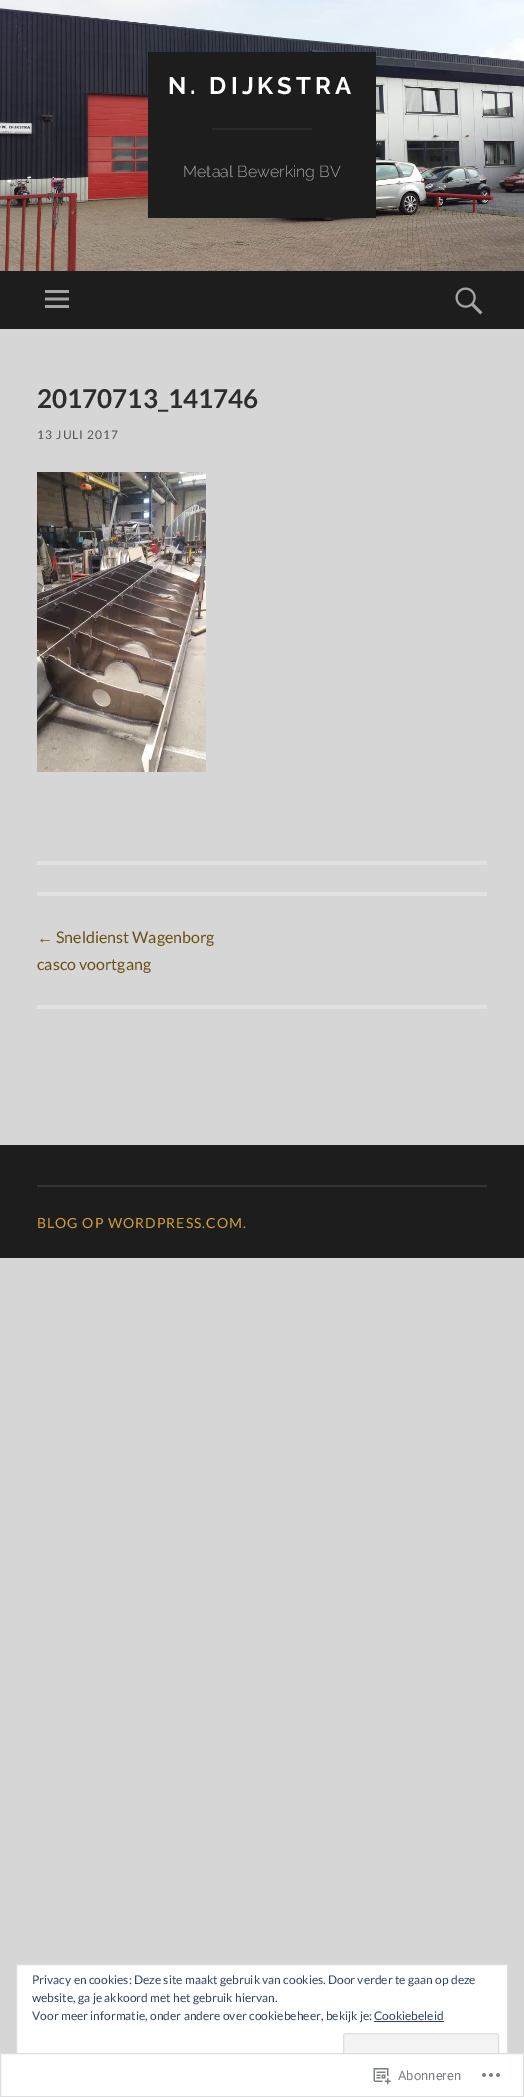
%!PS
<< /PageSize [524 2097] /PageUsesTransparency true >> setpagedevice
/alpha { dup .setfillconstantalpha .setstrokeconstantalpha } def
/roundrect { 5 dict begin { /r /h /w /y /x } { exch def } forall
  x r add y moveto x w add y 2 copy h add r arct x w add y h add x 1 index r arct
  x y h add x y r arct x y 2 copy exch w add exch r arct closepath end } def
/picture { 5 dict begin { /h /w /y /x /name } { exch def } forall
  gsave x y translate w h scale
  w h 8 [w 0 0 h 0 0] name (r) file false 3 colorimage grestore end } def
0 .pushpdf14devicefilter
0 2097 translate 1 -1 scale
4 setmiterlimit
0.839 setgray
0 0 524 2097 rectfill
(img1.rgb) 0 0 524 271 picture
0.114 setgray
148 52 228 166 rectfill
/Raleway-Bold [24 0 0 -24 0 0] selectfont
1 setgray
168 94 moveto 4 0 (N. DIJKSTRA) ashow
0.169 setgray
212 128 100 2 rectfill
/Raleway-Light [16 0 0 -16 0 0] selectfont
0.647 setgray
183 177 moveto (Metaal Bewerking BV) show
0.114 setgray
0 271 524 58 rectfill
(img2.rgb) 45 290 24 18 picture
(img3.rgb) 455 287 28 28 picture
0.886 setgray
37 861 450 4 rectfill
/Lato-Bold [26 0 0 -26 0 0] selectfont
0.176 setgray
37 408 moveto (20170713_141746) show
/Lato-Regular [12 0 0 -12 0 0] selectfont
0.337 setgray
37 439 moveto 1 0 (13 JULI 2017) ashow
(img4.rgb) 37 472 169 300 picture
0.886 setgray
37 892 450 4 rectfill
37 1005 450 4 rectfill
/LiberationSans-Regular [16 0 0 -16 0 0] selectfont
0.42 0.31 0.078 setrgbcolor
37 943 moveto (←) show
/Lato-Regular [16 0 0 -16 0 0] selectfont
56 943 moveto (Sneldienst Wagenborg) show
37 970 moveto (casco voortgang) show
0.114 setgray
0 1145 524 113 rectfill
0.204 setgray
37 1185 450 2 rectfill
/Lato-Regular [14 0 0 -14 0 0] selectfont
0.812 0.62 0.22 setrgbcolor
37 1228 moveto 1 0 (BLOG OP WORDPRESS.COM.) ashow
1 setgray
newpath 16.5 1964.5 moveto 507.5 1964.5 lineto 507.5 2080.5 lineto 16.5 2080.5 lineto closepath gsave fill grestore
0.871 setgray
stroke
/Lato-Regular [12 0 0 -12 0 0] selectfont
0.18 0.267 0.404 setrgbcolor
32 1984 moveto (Privacy en cookies: Deze site maakt gebruik van cookies. Door verder te gaan op deze) show
32 2002 moveto (website, ga je akkoord met het gebruik hiervan.) show
32 2020 moveto (Voor meer informatie, onder andere over cookiebeheer, bekijk je: Cookiebeleid) show
374 2021 70 1 rectfill
0.953 setgray
343.5 2033.5 155 38 2.5 roundrect gsave fill grestore
0.871 setgray
stroke
0.98 alpha
1 setgray
0 2053 524 44 rectfill
0.863 0.863 0.871 setrgbcolor
0.5 2053.5 523 43 rectstroke
1 alpha
(img5.rgb) 373 2068 18 17 picture
/Roboto-Regular [13 0 0 -13 0 0] selectfont
0.482 0.498 0.518 setrgbcolor
398 2080 moveto (Abonneren) show
(img6.rgb) 482 2073 18 4 picture
.poppdf14devicefilter showpage
